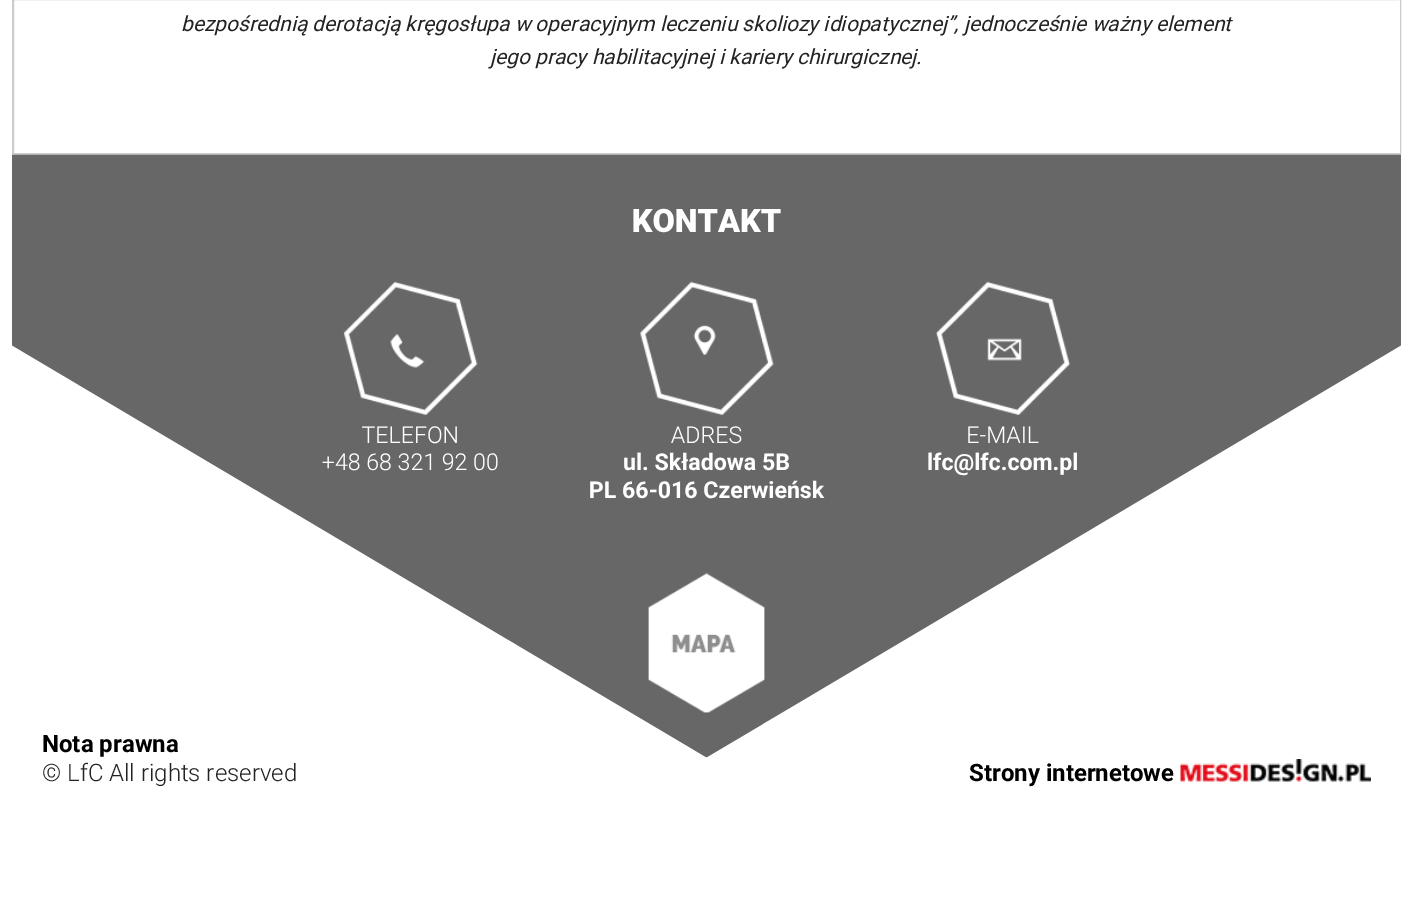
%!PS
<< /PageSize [1413 901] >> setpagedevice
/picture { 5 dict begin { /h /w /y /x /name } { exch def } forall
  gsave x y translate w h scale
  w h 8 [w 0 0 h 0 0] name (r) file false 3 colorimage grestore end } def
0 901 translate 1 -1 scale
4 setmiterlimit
1 setgray
0 0 1413 901 rectfill
0.8 setgray
2 setlinewidth
13 -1 1387 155 rectstroke
1 setgray
1399 0 1 153 rectfill
/Roboto-Italic [21 0 0 -21 0 0] selectfont
0.137 setgray
181 31 moveto (bezpośrednią derotacją kręgosłupa w operacyjnym leczeniu skoliozy idiopatycznej”, jednocześnie ważny element) show
490 64 moveto (jego pracy habilitacyjnej i kariery chirurgicznej.) show
(img1.rgb) 12 154 1389 604 picture
/Roboto-Bold [24 0 0 -24 0 0] selectfont
0 setgray
42 752 moveto (Nota prawna) show
/Roboto-Light [24 0 0 -24 0 0] selectfont
0.137 setgray
42 781 moveto (© LfC All rights reserved) show
/Roboto-Bold [24 0 0 -24 0 0] selectfont
0 setgray
969 781 moveto (Strony internetowe) show
(img2.rgb) 1180 759 191 23 picture
showpage
